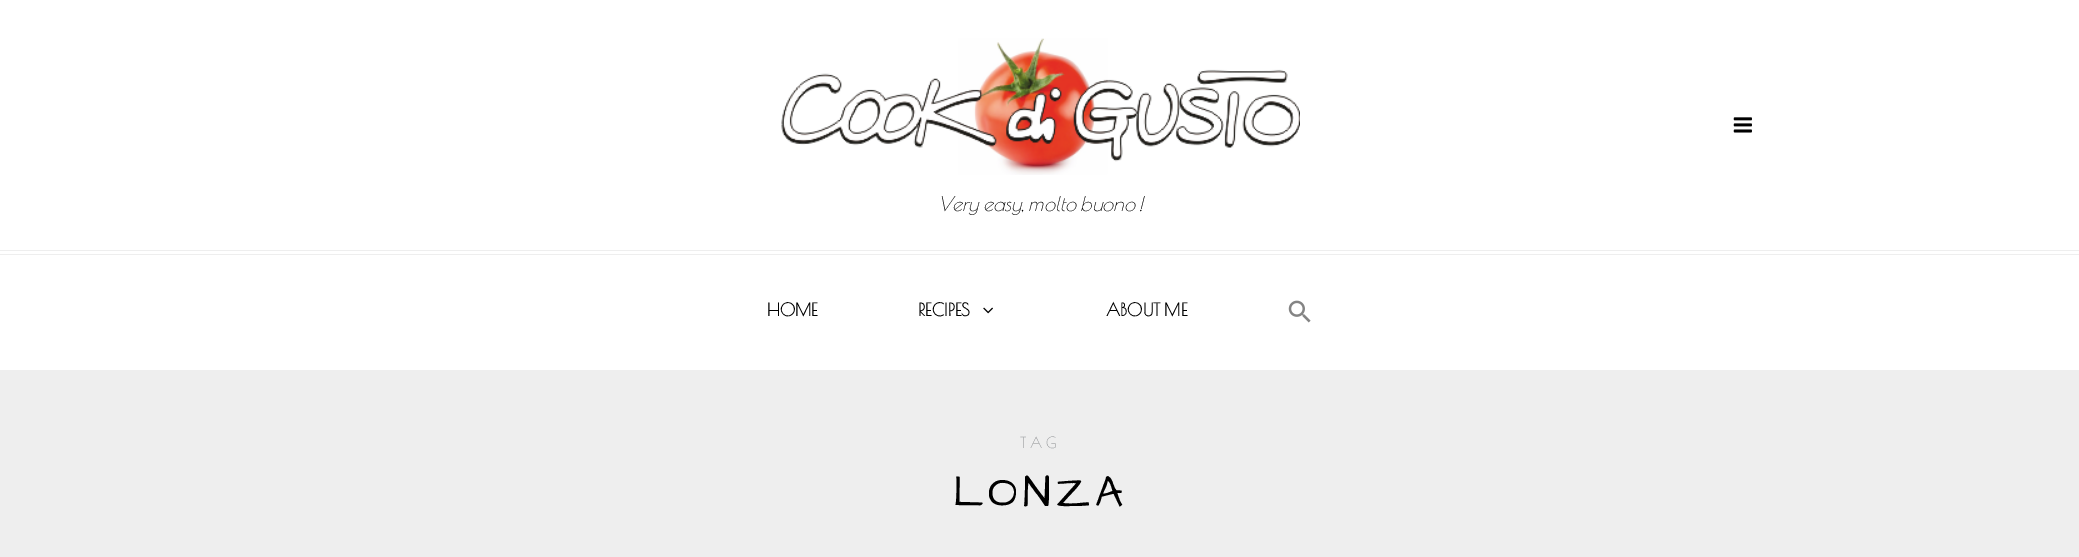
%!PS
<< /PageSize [2079 557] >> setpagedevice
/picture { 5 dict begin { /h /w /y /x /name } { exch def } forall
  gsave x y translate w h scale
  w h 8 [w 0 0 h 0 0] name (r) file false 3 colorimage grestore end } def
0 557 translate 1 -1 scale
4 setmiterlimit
1 setgray
0 0 2079 557 rectfill
(img1.rgb) 1733 117 19 16 picture
(img2.rgb) 781 38 519 137 picture
/PoiretOne-Italic [20 0 0 -20 0 0] selectfont
0 setgray
938 211 moveto (Very easy, molto buono !) show
0.933 setgray
0 250 2079 1 rectfill
0 254 2079 1 rectfill
/PoiretOne-Bold [17.5 0 0 -17.5 0 0] selectfont
0 setgray
767 316 moveto (HOME) show
918 316 moveto (RECIPES) show
(img3.rgb) 983 307 10 7 picture
1106 316 moveto (ABOUT ME) show
(img4.rgb) 1288 300 23 23 picture
0.933 setgray
0 370 2079 187 rectfill
/PoiretOne-Regular [15 0 0 -15 0 0] selectfont
0.561 0.573 0.58 setrgbcolor
1020 448 moveto 4 0 (TAG) ashow
/ArchitectsDaughter-Regular [44 0 0 -44 0 0] selectfont
0 setgray
953 506 moveto 5 0 (LONZA) ashow
showpage
